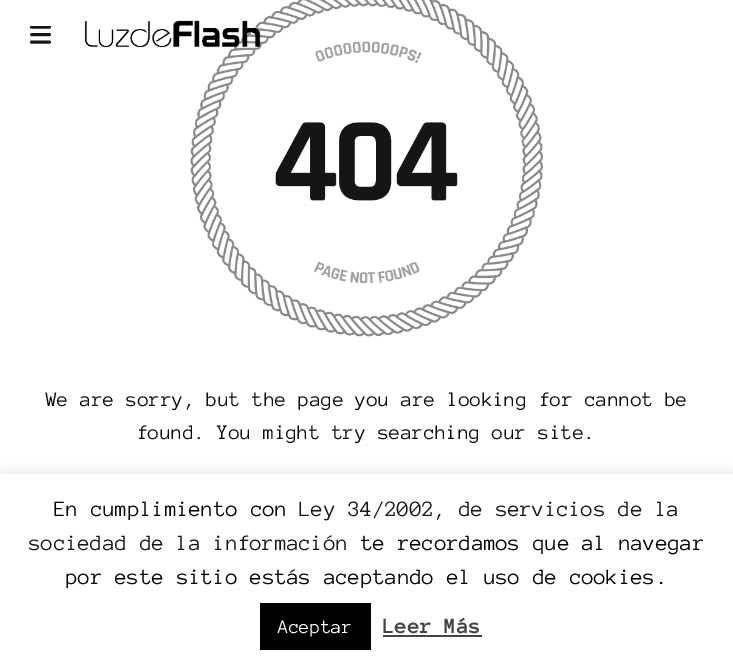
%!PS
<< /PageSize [733 667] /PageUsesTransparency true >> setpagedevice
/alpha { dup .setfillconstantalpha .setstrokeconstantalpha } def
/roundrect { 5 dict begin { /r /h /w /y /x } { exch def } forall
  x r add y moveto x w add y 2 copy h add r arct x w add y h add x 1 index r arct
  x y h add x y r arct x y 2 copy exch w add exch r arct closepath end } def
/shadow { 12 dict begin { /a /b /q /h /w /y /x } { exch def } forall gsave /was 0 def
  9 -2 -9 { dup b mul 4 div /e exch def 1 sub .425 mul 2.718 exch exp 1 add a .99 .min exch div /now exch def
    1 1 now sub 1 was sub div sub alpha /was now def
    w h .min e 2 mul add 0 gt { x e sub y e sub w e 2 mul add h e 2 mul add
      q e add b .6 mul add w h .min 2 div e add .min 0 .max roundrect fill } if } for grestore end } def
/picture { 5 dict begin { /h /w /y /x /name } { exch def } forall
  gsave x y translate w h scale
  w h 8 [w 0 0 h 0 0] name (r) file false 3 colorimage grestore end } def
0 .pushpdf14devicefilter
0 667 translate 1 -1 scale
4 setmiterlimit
1 setgray
0 0 733 667 rectfill
(img2.rgb) 0 0 733 474 picture
gsave
30 26 30 18 rectclip
0.086 setgray
3 setlinewidth
1 setlinecap
1 setlinejoin
newpath 31.5 27 moveto 49.5 27 lineto stroke
grestore
0.086 setgray
3 setlinewidth
1 setlinecap
1 setlinejoin
newpath 31.5 34.5 moveto 49.5 34.5 lineto 31.5 42 moveto 49.5 42 lineto stroke
(img3.rgb) 190 0 353 337 picture
(img1.rgb) 84 20 177 28 picture
/AnonymousPro-Regular [21 0 0 -21 0 0] selectfont
0.039 setgray
46 406 moveto (We are sorry, but the page you are looking for cannot be) show
137 439 moveto (found. You might try searching our site.) show
0.675 0.671 0.671 setrgbcolor
0 473 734 193 0 7.5 0.3 shadow
1 setgray
0 474 733 193 rectfill
/AnonymousPro-Regular [22.5 0 0 -22.5 0 0] selectfont
0 setgray
54 516 moveto (En cumplimiento con) show
0.082 setgray
299 516 moveto (Ley 34/2002, de servicios de la) show
29 550 moveto (sociedad de la información) show
0 setgray
361 550 moveto (te recordamos que al navegar) show
66 584 moveto (por este sitio estás aceptando el uso de cookies.) show
260 603 111 47 rectfill
/AnonymousPro-Regular [19.5 0 0 -19.5 0 0] selectfont
1 setgray
278 633 moveto (Aceptar) show
/AnonymousPro-Bold [22.5 0 0 -22.5 0 0] selectfont
0.267 setgray
383 633 moveto (Leer Más) show
383 635 99 2 rectfill
.poppdf14devicefilter showpage
